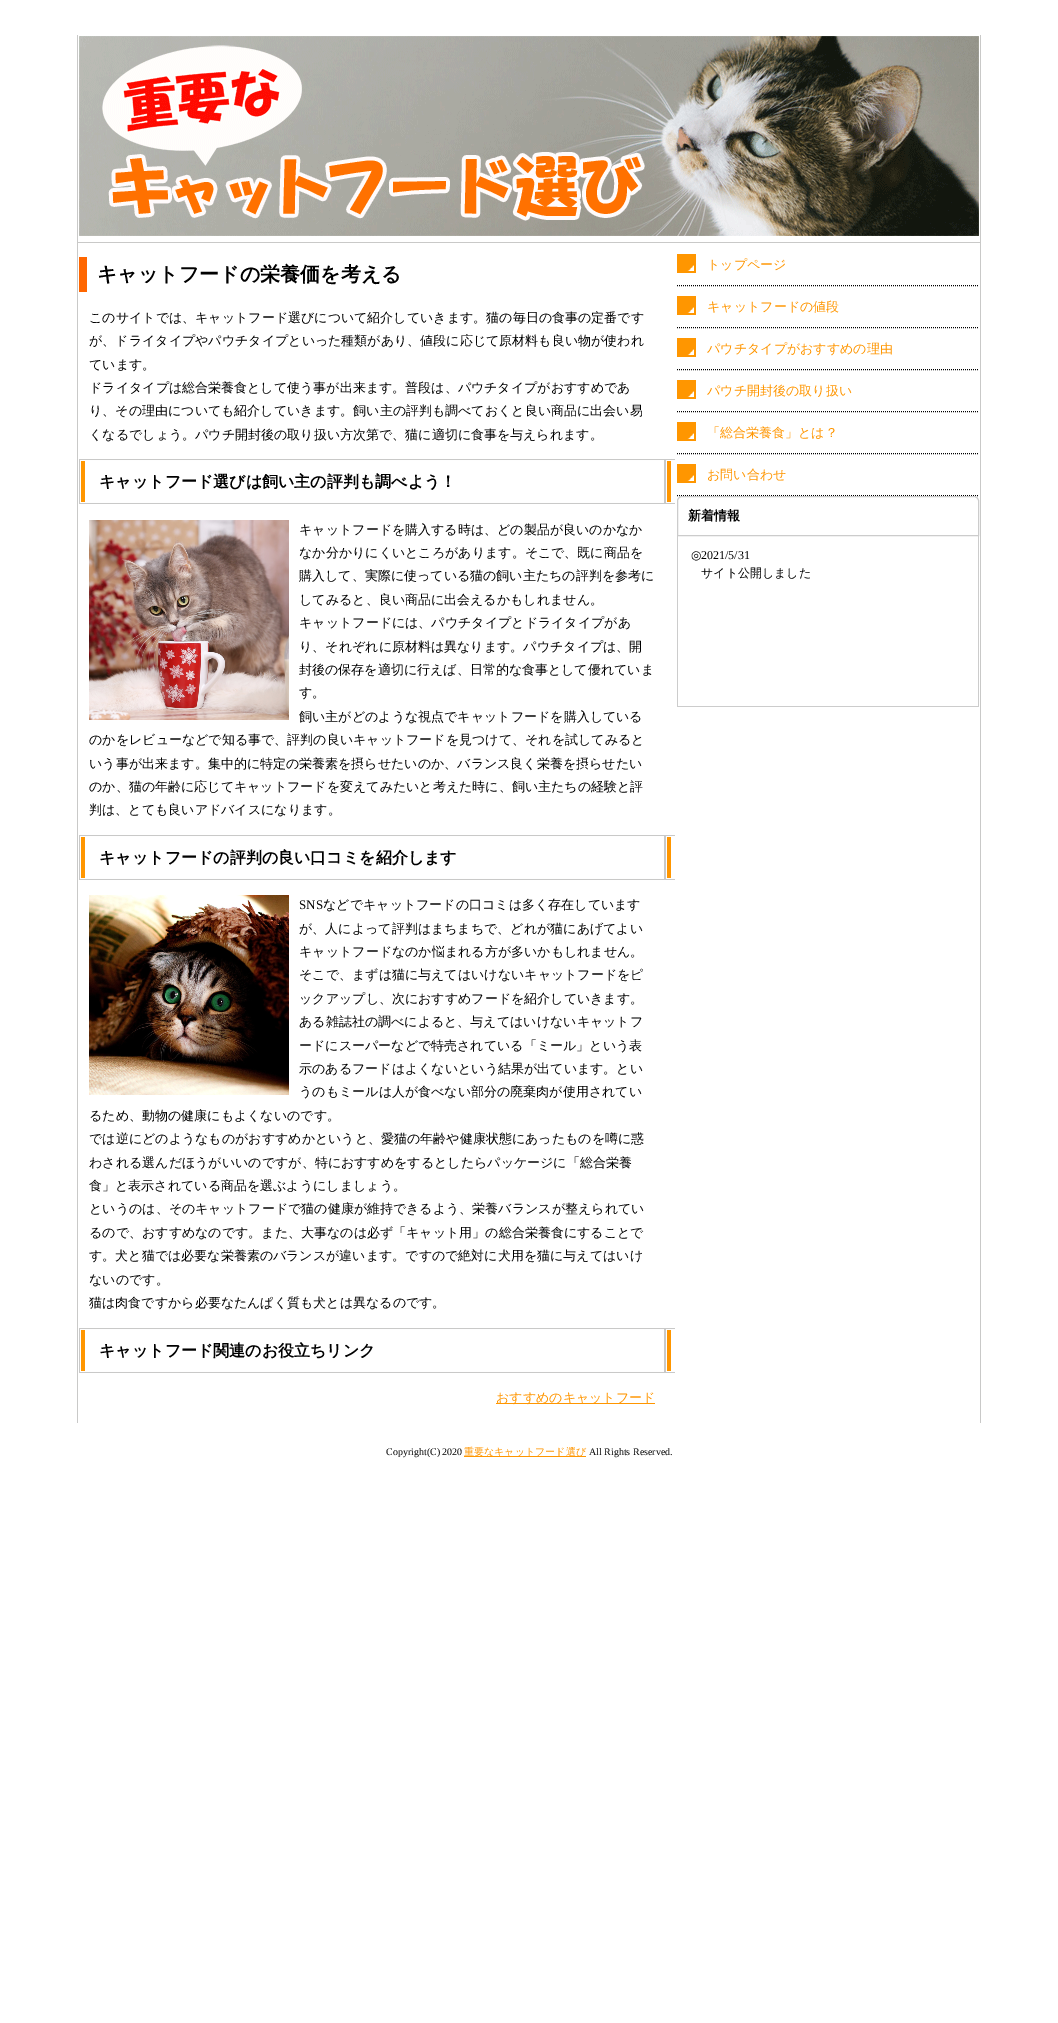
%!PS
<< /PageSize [1058 2023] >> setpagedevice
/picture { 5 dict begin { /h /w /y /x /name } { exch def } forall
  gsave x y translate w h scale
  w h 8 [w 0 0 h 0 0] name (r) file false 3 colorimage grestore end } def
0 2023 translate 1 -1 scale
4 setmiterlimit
1 setgray
0 0 1058 2023 rectfill
0.788 0.788 0.784 setrgbcolor
980 35 1 1388 rectfill
77 35 1 1388 rectfill
78 242 902 1 rectfill
(img1.rgb) 79 36 900 200 picture
1 0.4 0 setrgbcolor
79 257 8 35 rectfill
/WenQuanYiZenHei-Bold [20 0 0 -20 0 0] selectfont
0 setgray
97 281 moveto (キャットフードの栄養価を考える) show
/WenQuanYiZenHei-Medium [13 0 0 -13 0 0] selectfont
89 322 moveto (このサイトでは、キャットフード選びについて紹介していきます。猫の毎日の食事の定番です) show
89 345 moveto (が、ドライタイプやパウチタイプといった種類があり、値段に応じて原材料も良い物が使われ) show
89 369 moveto (ています。) show
89 392 moveto (ドライタイプは総合栄養食として使う事が出来ます。普段は、パウチタイプがおすすめであ) show
89 415 moveto (り、その理由についても紹介していきます。飼い主の評判も調べておくと良い商品に出会い易) show
89 439 moveto (くなるでしょう。パウチ開封後の取り扱い方次第で、猫に適切に食事を与えられます。) show
(img2.rgb) 79 459 596 45 picture
/WenQuanYiZenHei-Bold [16 0 0 -16 0 0] selectfont
99 487 moveto (キャットフード選びは飼い主の評判も調べよう！) show
(img3.rgb) 89 520 200 200 picture
/WenQuanYiZenHei-Medium [13 0 0 -13 0 0] selectfont
299 534 moveto (キャットフードを購入する時は、どの製品が良いのかなか) show
299 557 moveto (なか分かりにくいところがあります。そこで、既に商品を) show
299 580 moveto (購入して、実際に使っている猫の飼い主たちの評判を参考に) show
299 604 moveto (してみると、良い商品に出会えるかもしれません。) show
299 627 moveto (キャットフードには、パウチタイプとドライタイプがあ) show
299 651 moveto (り、それぞれに原材料は異なります。パウチタイプは、開) show
299 674 moveto (封後の保存を適切に行えば、日常的な食事として優れていま) show
299 697 moveto (す。) show
299 721 moveto (飼い主がどのような視点でキャットフードを購入している) show
89 744 moveto (のかをレビューなどで知る事で、評判の良いキャットフードを見つけて、それを試してみると) show
89 768 moveto (いう事が出来ます。集中的に特定の栄養素を摂らせたいのか、バランス良く栄養を摂らせたい) show
89 791 moveto (のか、猫の年齢に応じてキャットフードを変えてみたいと考えた時に、飼い主たちの経験と評) show
89 814 moveto (判は、とても良いアドバイスになります。) show
(img2.rgb) 79 835 596 45 picture
/WenQuanYiZenHei-Bold [16 0 0 -16 0 0] selectfont
99 863 moveto (キャットフードの評判の良い口コミを紹介します) show
(img4.rgb) 89 895 200 200 picture
/LiberationSerif-Regular [13 0 0 -13 0 0] selectfont
299 909 moveto (SNS) show
/WenQuanYiZenHei-Medium [13 0 0 -13 0 0] selectfont
323 909 moveto (などでキャットフードの口コミは多く存在しています) show
299 933 moveto (が、人によって評判はまちまちで、どれが猫にあげてよい) show
299 956 moveto (キャットフードなのか悩まれる方が多いかもしれません。) show
299 979 moveto (そこで、まずは猫に与えてはいけないキャットフードをピ) show
299 1003 moveto (ックアップし、次におすすめフードを紹介していきます。) show
299 1026 moveto (ある雑誌社の調べによると、与えてはいけないキャットフ) show
299 1050 moveto (ードにスーパーなどで特売されている「ミール」という表) show
299 1073 moveto (示のあるフードはよくないという結果が出ています。とい) show
299 1096 moveto (うのもミールは人が食べない部分の廃棄肉が使用されてい) show
89 1120 moveto (るため、動物の健康にもよくないのです。) show
89 1143 moveto (では逆にどのようなものがおすすめかというと、愛猫の年齢や健康状態にあったものを噂に惑) show
89 1167 moveto (わされる選んだほうがいいのですが、特におすすめをするとしたらパッケージに「総合栄養) show
89 1190 moveto (食」と表示されている商品を選ぶようにしましょう。) show
89 1213 moveto (というのは、そのキャットフードで猫の健康が維持できるよう、栄養バランスが整えられてい) show
89 1237 moveto (るので、おすすめなのです。また、大事なのは必ず「キャット用」の総合栄養食にすることで) show
89 1260 moveto (す。犬と猫では必要な栄養素のバランスが違います。ですので絶対に犬用を猫に与えてはいけ) show
89 1284 moveto (ないのです。) show
89 1307 moveto (猫は肉食ですから必要なたんぱく質も犬とは異なるのです。) show
(img2.rgb) 79 1328 596 45 picture
/WenQuanYiZenHei-Bold [16 0 0 -16 0 0] selectfont
99 1356 moveto (キャットフード関連のお役立ちリンク) show
1 0.588 0 setrgbcolor
496 1403 159 1 rectfill
/WenQuanYiZenHei-Medium [13 0 0 -13 0 0] selectfont
496 1402 moveto (おすすめのキャットフード) show
(img5.rgb) 677 254 19 19 picture
0 setgray
[1 1] 0 setdash
newpath 677 285.5 moveto 979 285.5 lineto stroke
1 0.588 0 setrgbcolor
707 269 moveto (トップページ) show
(img5.rgb) 677 296 19 19 picture
0 setgray
newpath 677 327.5 moveto 979 327.5 lineto stroke
1 0.588 0 setrgbcolor
707 311 moveto (キャットフードの値段) show
(img5.rgb) 677 338 19 19 picture
0 setgray
newpath 677 369.5 moveto 979 369.5 lineto stroke
1 0.588 0 setrgbcolor
707 353 moveto (パウチタイプがおすすめの理由) show
(img5.rgb) 677 380 19 19 picture
0 setgray
newpath 677 411.5 moveto 979 411.5 lineto stroke
1 0.588 0 setrgbcolor
707 395 moveto (パウチ開封後の取り扱い) show
(img5.rgb) 677 422 19 19 picture
0 setgray
newpath 677 453.5 moveto 979 453.5 lineto stroke
1 0.588 0 setrgbcolor
707 437 moveto (「総合栄養食」とは？) show
(img5.rgb) 677 464 19 19 picture
0 setgray
newpath 677 495.5 moveto 979 495.5 lineto stroke
1 0.588 0 setrgbcolor
707 479 moveto (お問い合わせ) show
0.8 setgray
[] 0 setdash
newpath 682 496.5 moveto 974 496.5 lineto 976.5 496.5 978.5 498.5 978.5 501 curveto 978.5 535.5 lineto 677.5 535.5 lineto 677.5 501 lineto 677.5 498.5 679.5 496.5 682 496.5 curveto closepath stroke
/WenQuanYiZenHei-Bold [13 0 0 -13 0 0] selectfont
0 setgray
688 520 moveto (新着情報) show
0.8 setgray
978 536 1 171 rectfill
677 706 302 1 rectfill
677 536 1 171 rectfill
/DejaVuSans-Regular [12 0 0 -12 0 0] selectfont
0 setgray
691 559 moveto (◎) show
/LiberationSerif-Regular [12 0 0 -12 0 0] selectfont
701 559 moveto (2021/5/31) show
/WenQuanYiZenHei-Medium [12 0 0 -12 0 0] selectfont
701 577 moveto (サイト公開しました) show
/LiberationSerif-Regular [10 0 0 -10 0 0] selectfont
386 1455 moveto (Copyright\(C\) 2020) show
1 0.588 0 setrgbcolor
464 1456 122 1 rectfill
/WenQuanYiZenHei-Medium [10 0 0 -10 0 0] selectfont
464 1455 moveto (重要なキャットフード選び) show
/LiberationSerif-Regular [10 0 0 -10 0 0] selectfont
0 setgray
589 1455 moveto (All Rights Reserved.) show
showpage
